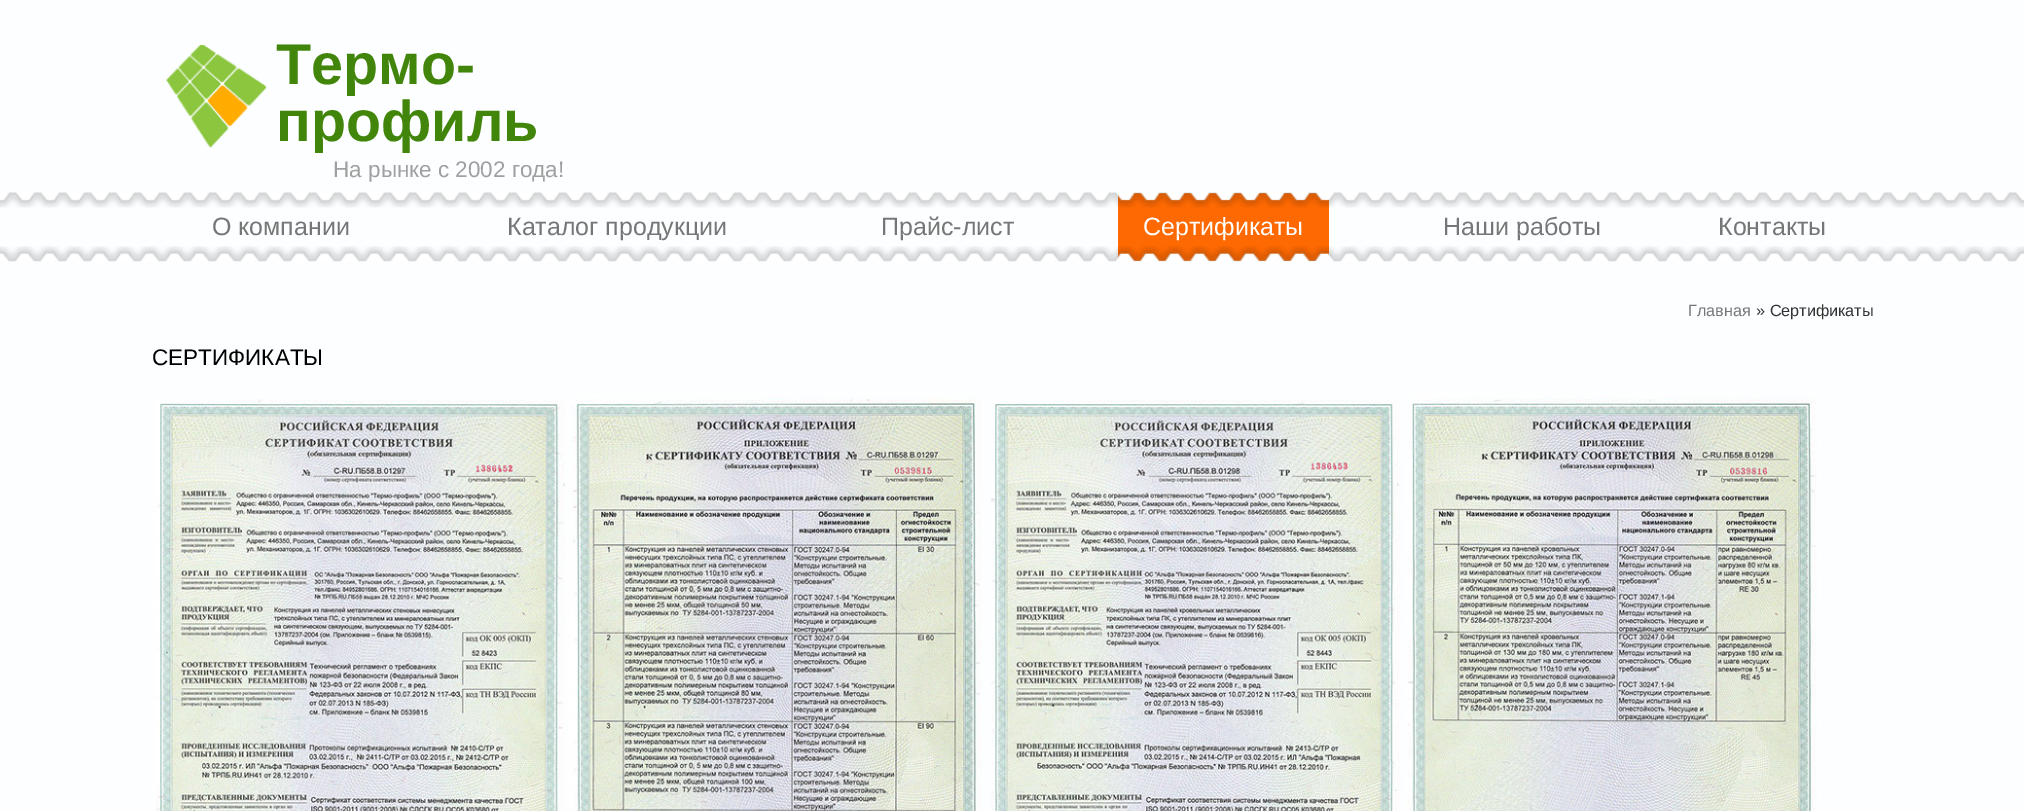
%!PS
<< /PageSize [2024 811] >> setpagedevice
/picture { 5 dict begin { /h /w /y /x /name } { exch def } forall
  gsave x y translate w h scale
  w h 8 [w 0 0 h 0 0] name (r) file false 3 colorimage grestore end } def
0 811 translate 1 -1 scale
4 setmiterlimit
0.988 0.996 1 setrgbcolor
0 0 2024 811 rectfill
(img1.rgb) 166 45 101 103 picture
/LiberationSans-Bold [57.5 0 0 -57.5 0 0] selectfont
0.255 0.525 0.043 setrgbcolor
276 84 moveto (Термо-) show
276 141 moveto (профиль) show
/LiberationSans-Regular [22.5 0 0 -22.5 0 0] selectfont
0.627 setgray
333 177 moveto (На рынке с 2002 года!) show
0.996 0.412 0.008 setrgbcolor
1118 193 211 68 rectfill
(img2.rgb) 0 192 2024 16 picture
/LiberationSans-Regular [25 0 0 -25 0 0] selectfont
0.463 setgray
212 235 moveto (О компании) show
507 235 moveto (Каталог продукции) show
881 235 moveto (Прайс-лист) show
1 setgray
1143 235 moveto (Сертификаты) show
0.463 setgray
1443 235 moveto (Наши работы) show
1718 235 moveto (Контакты) show
(img3.rgb) 0 246 2024 16 picture
/LiberationSans-Regular [16.25 0 0 -16.25 0 0] selectfont
1688 316 moveto (Главная) show
0.2 setgray
1756 316 moveto (» Сертификаты) show
/LiberationSans-Regular [22.5 0 0 -22.5 0 0] selectfont
0 setgray
152 365 moveto (СЕРТИФИКАТЫ) show
(img4.rgb) 155 399 410 412 picture
(img5.rgb) 570 396 412 415 picture
(img6.rgb) 990 400 410 411 picture
(img7.rgb) 1405 396 412 415 picture
showpage
